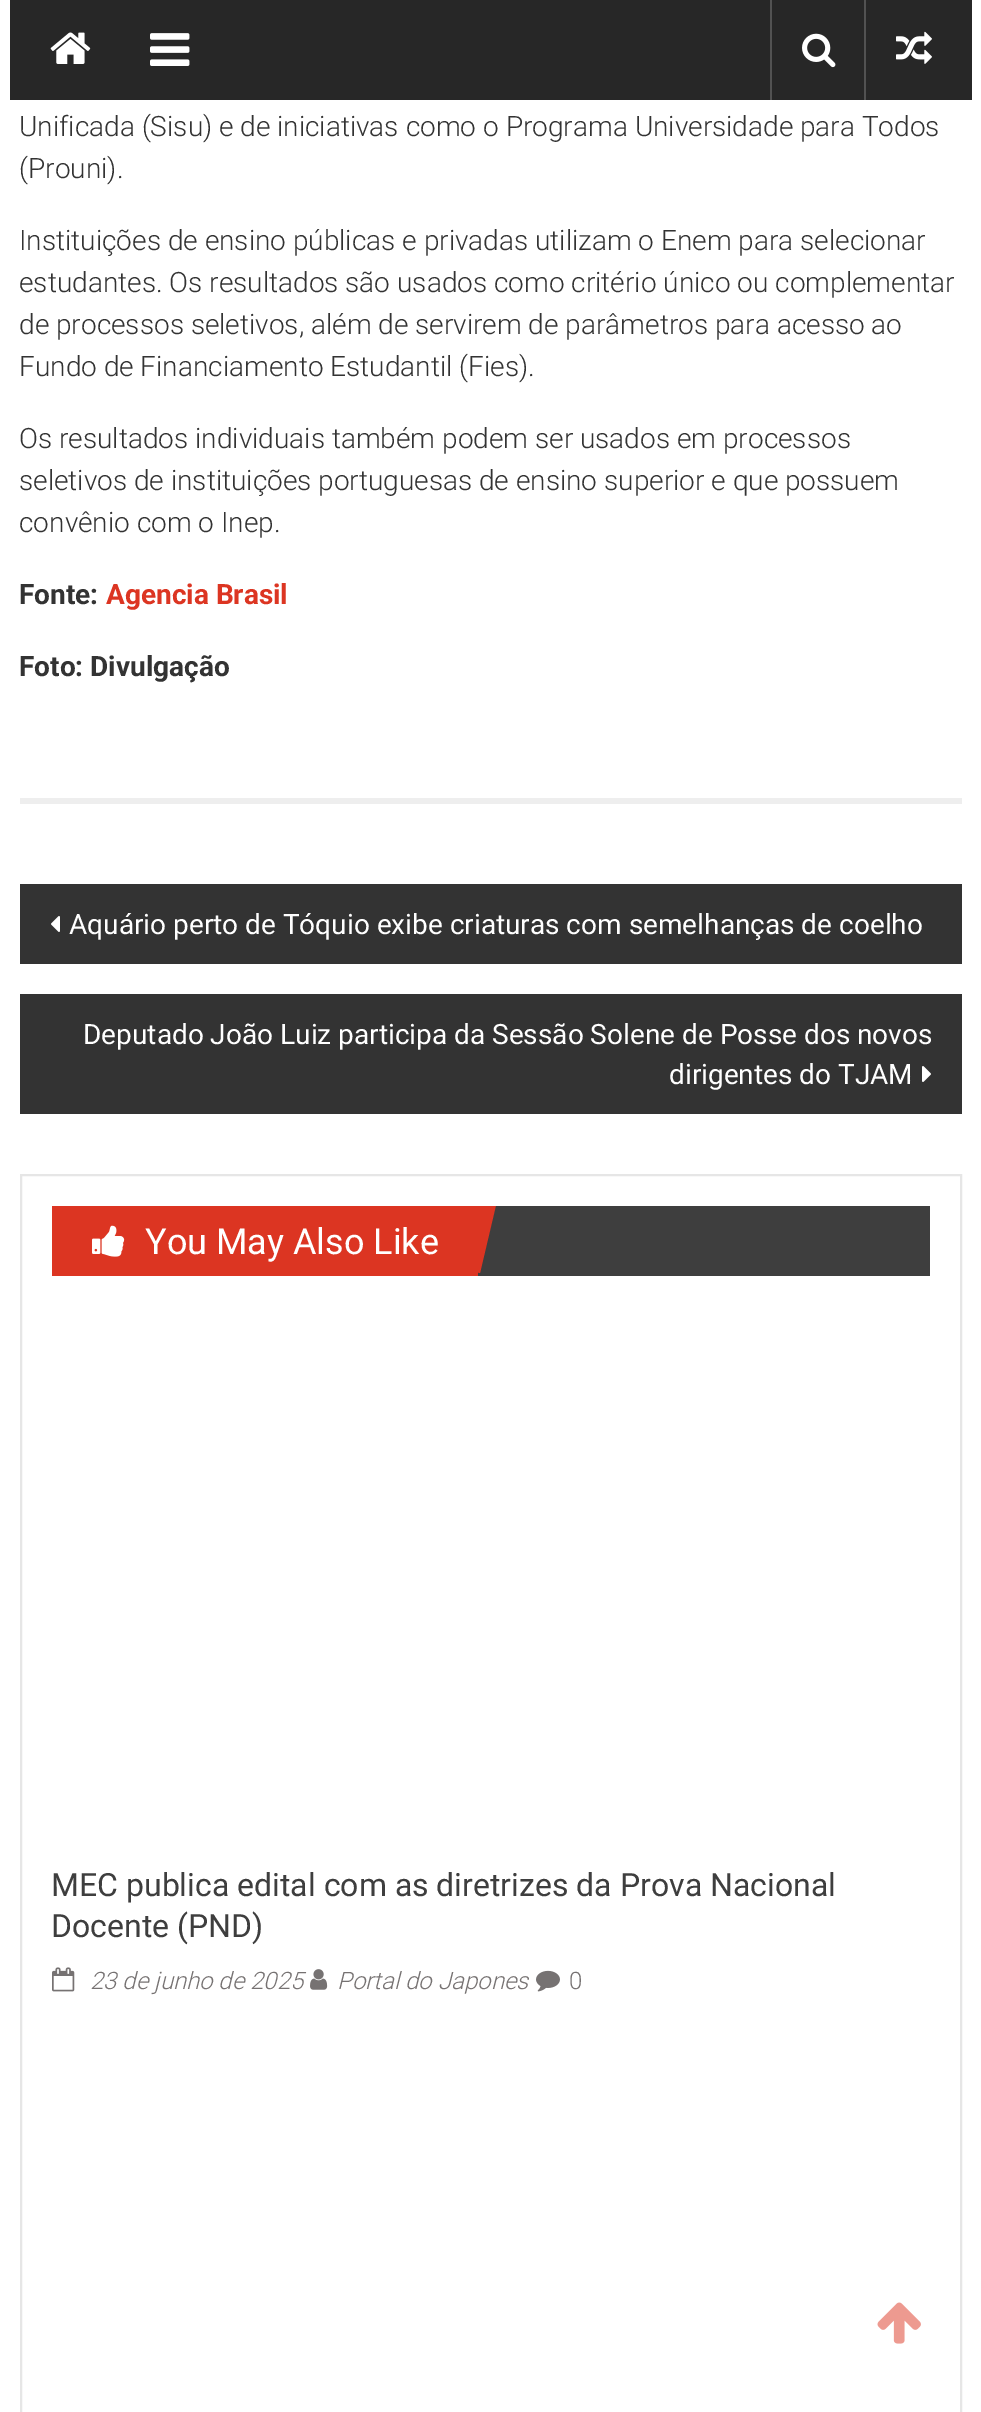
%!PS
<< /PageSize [981 2412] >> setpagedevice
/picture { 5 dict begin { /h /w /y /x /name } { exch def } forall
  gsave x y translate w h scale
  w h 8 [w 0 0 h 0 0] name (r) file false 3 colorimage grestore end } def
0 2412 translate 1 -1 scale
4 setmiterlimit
1 setgray
0 0 981 2412 rectfill
0.153 setgray
10 0 962 100 rectfill
(img1.rgb) 50 32 41 32 picture
(img2.rgb) 150 33 40 33 picture
0.322 setgray
770 0 2 100 rectfill
(img3.rgb) 802 33 34 35 picture
864 0 2 100 rectfill
(img4.rgb) 896 31 36 33 picture
0.933 setgray
20 798 942 6 rectfill
/Roboto-Light [28 0 0 -28 0 0] selectfont
0.2 setgray
19 136 moveto (Unificada \(Sisu\) e de iniciativas como o Programa Universidade para Todos) show
19 178 moveto (\(Prouni\).) show
19 250 moveto (Instituições de ensino públicas e privadas utilizam o Enem para selecionar) show
19 292 moveto (estudantes. Os resultados são usados como critério único ou complementar) show
19 334 moveto (de processos seletivos, além de servirem de parâmetros para acesso ao) show
19 376 moveto (Fundo de Financiamento Estudantil \(Fies\).) show
19 448 moveto (Os resultados individuais também podem ser usados em processos) show
19 490 moveto (seletivos de instituições portuguesas de ensino superior e que possuem) show
19 532 moveto (convênio com o Inep.) show
/Roboto-Bold [28 0 0 -28 0 0] selectfont
19 604 moveto (Fonte:) show
0.863 0.208 0.133 setrgbcolor
106 604 moveto (Agencia Brasil) show
0.2 setgray
19 676 moveto (Foto: Divulgação) show
20 884 942 80 rectfill
(img5.rgb) 51 916 9 16 picture
/Roboto-Regular [28 0 0 -28 0 0] selectfont
1 setgray
69 934 moveto (Aquário perto de Tóquio exibe criaturas com semelhanças de coelho) show
0.2 setgray
20 994 942 120 rectfill
1 setgray
83 1044 moveto (Deputado João Luiz participa da Sessão Solene de Posse dos novos) show
669 1084 moveto (dirigentes do TJAM) show
(img6.rgb) 922 1066 9 16 picture
0.902 setgray
2 setlinewidth
21 1175 940 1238 rectstroke
0.243 setgray
478 1206 452 70 rectfill
0.863 0.208 0.133 setrgbcolor
52 1206 426 70 rectfill
(img7.rgb) 92 1225 33 32 picture
gsave
52 1206 878 70 rectclip
newpath 496 1205 moveto 480 1273 lineto 412 1257 lineto 427 1189 lineto closepath fill
grestore
/Roboto-Regular [36 0 0 -36 0 0] selectfont
1 setgray
145 1254 moveto (You May Also Like) show
/Roboto-Regular [32 0 0 -32 0 0] selectfont
0.243 setgray
51 1896 moveto (MEC publica edital com as diretrizes da Prova Nacional) show
51 1937 moveto (Docente \(PND\)) show
(img8.rgb) 52 1967 23 25 picture
/Roboto-LightItalic [24 0 0 -24 0 0] selectfont
0.463 0.447 0.447 setrgbcolor
90 1989 moveto (23 de junho de 2025) show
(img9.rgb) 310 1969 18 21 picture
337 1989 moveto (Portal do Japones) show
(img10.rgb) 536 1970 24 22 picture
/Roboto-Light [24 0 0 -24 0 0] selectfont
569 1989 moveto (0) show
(img11.rgb) 877 2302 44 42 picture
showpage
